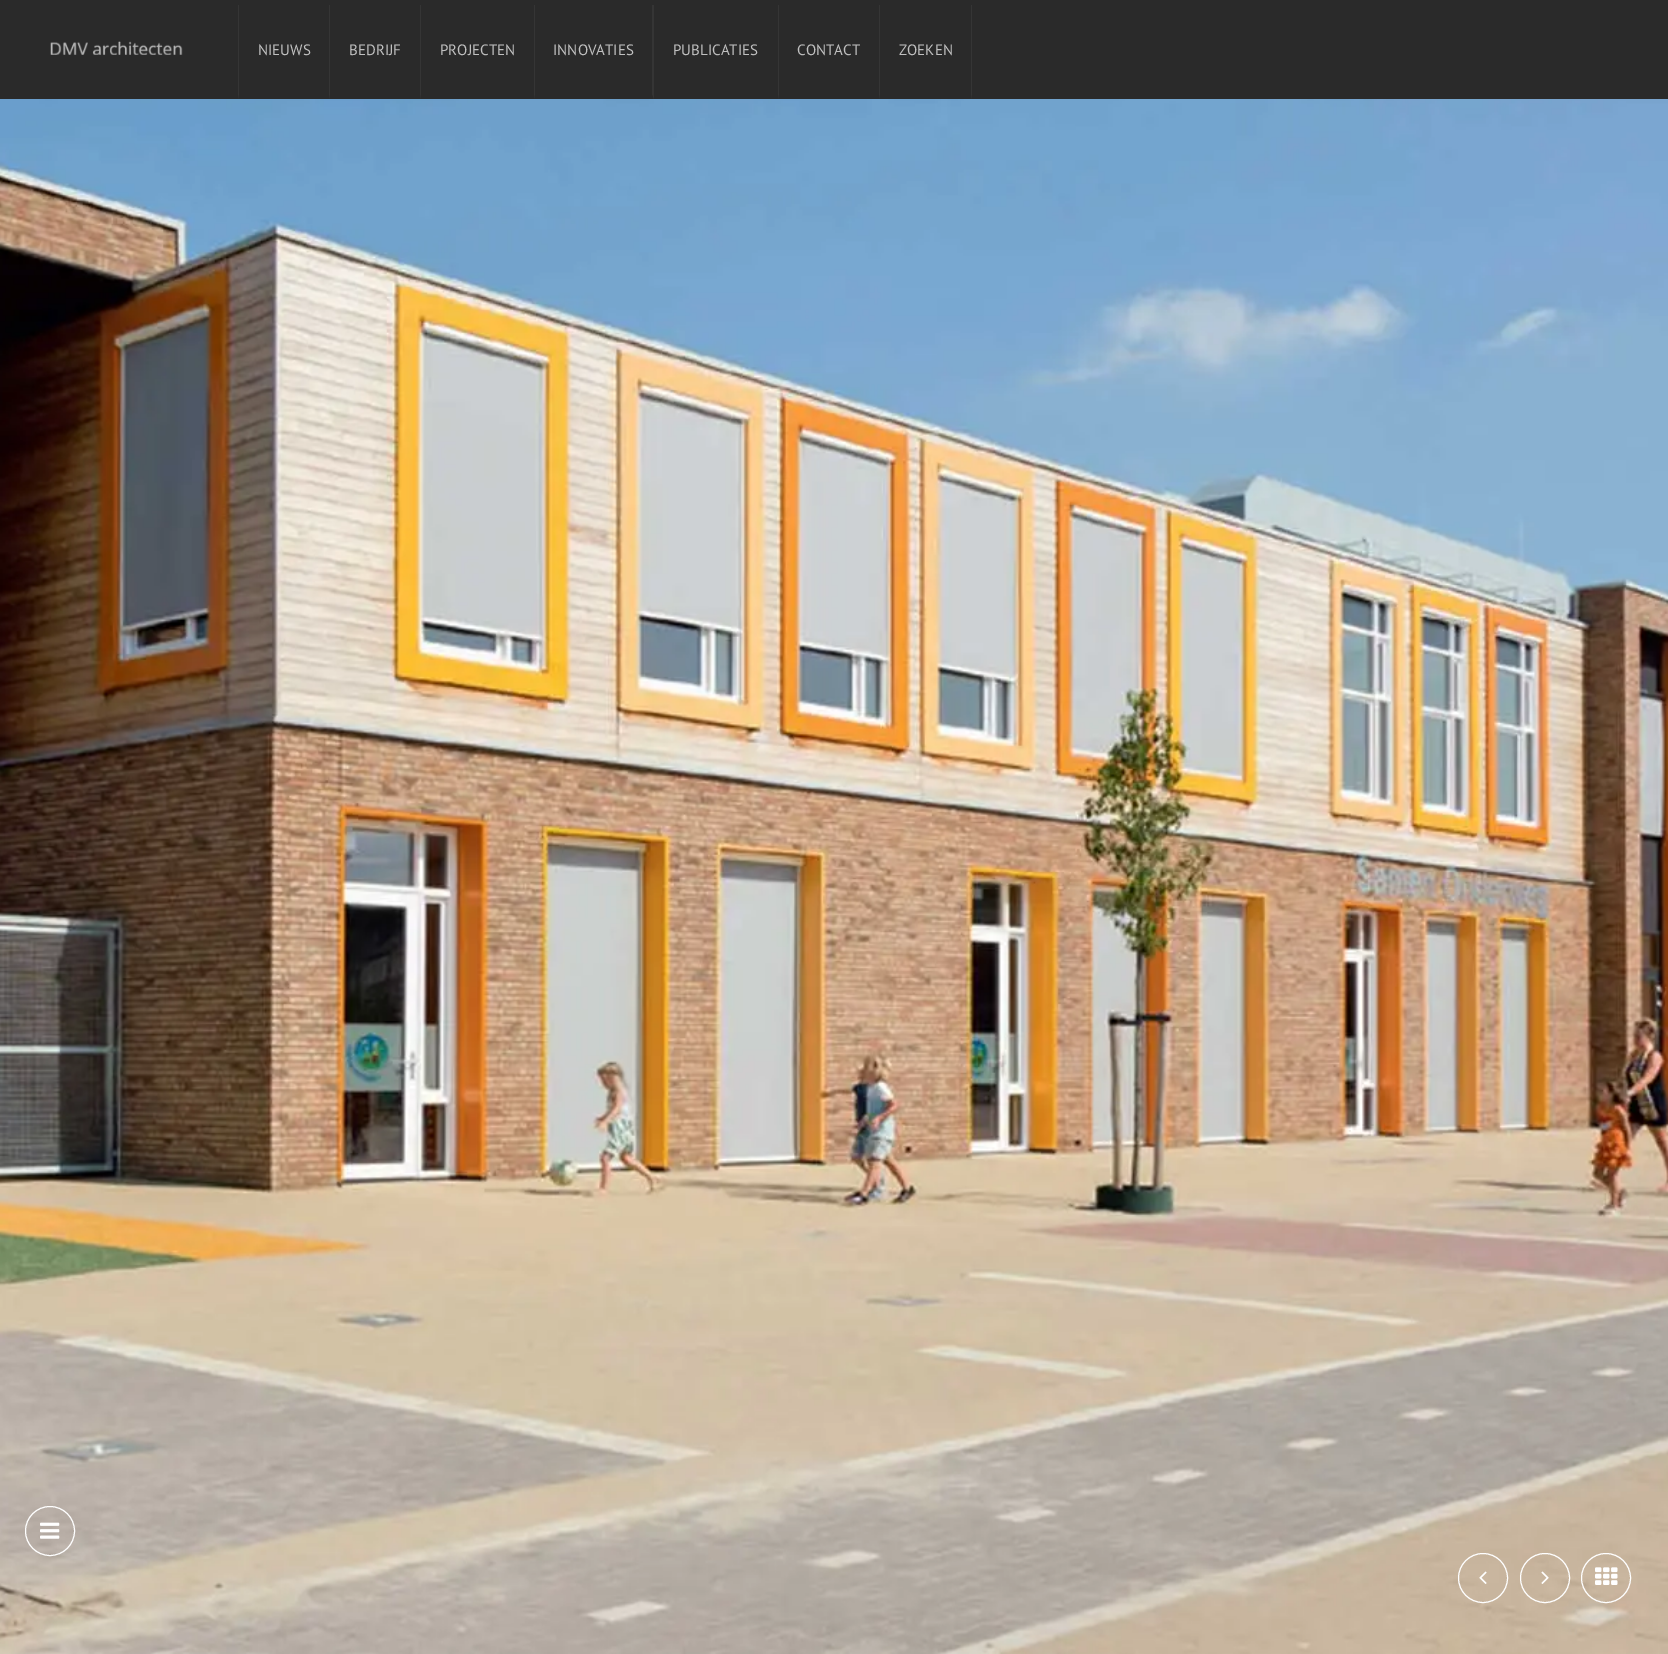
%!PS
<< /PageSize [1668 1654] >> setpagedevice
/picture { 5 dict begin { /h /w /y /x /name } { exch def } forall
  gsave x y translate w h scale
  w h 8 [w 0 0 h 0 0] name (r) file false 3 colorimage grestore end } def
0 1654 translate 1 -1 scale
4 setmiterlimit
1 setgray
0 0 1668 1654 rectfill
0.165 setgray
0 0 1668 99 rectfill
(img1.rgb) 50 41 133 14 picture
0.208 setgray
newpath 330 5 moveto 330 99 lineto 329 94 lineto 329 5 lineto closepath fill
newpath 238 99 moveto 238 5 lineto 239 5 lineto 239 94 lineto closepath fill
/PTSans-Regular [15 0 0 -15 0 0] selectfont
0.753 setgray
258 55 moveto (NIEUWS) show
0.208 setgray
newpath 421 5 moveto 421 99 lineto 420 94 lineto 420 5 lineto closepath fill
0.753 setgray
349 55 moveto (BEDRIJF) show
0.208 setgray
newpath 535 5 moveto 535 99 lineto 534 94 lineto 534 5 lineto closepath fill
0.753 setgray
440 55 moveto (PROJECTEN) show
0.208 setgray
newpath 654 5 moveto 654 99 lineto 652 94 lineto 652 5 lineto closepath fill
0.753 setgray
553 55 moveto (INNOVATIES) show
0.208 setgray
newpath 779 5 moveto 779 99 lineto 778 94 lineto 778 5 lineto closepath fill
0.753 setgray
673 55 moveto (PUBLICATIES) show
0.208 setgray
newpath 880 5 moveto 880 99 lineto 879 94 lineto 879 5 lineto closepath fill
0.753 setgray
797 55 moveto (CONTACT) show
0.208 setgray
newpath 972 5 moveto 972 99 lineto 971 94 lineto 971 5 lineto closepath fill
0.753 setgray
899 55 moveto (ZOEKEN) show
(img2.rgb) 0 99 1668 1555 picture
1 setgray
newpath 1483 1578 24.5 0 360 arc closepath stroke
(img3.rgb) 1479 1571 8 13 picture
newpath 1545 1578 24.5 0 360 arc closepath stroke
(img4.rgb) 1541 1571 8 13 picture
newpath 50 1531 24.5 0 360 arc closepath stroke
(img5.rgb) 40 1522 20 17 picture
newpath 1606 1578 24.5 0 360 arc closepath stroke
(img6.rgb) 1595 1567 23 18 picture
showpage
